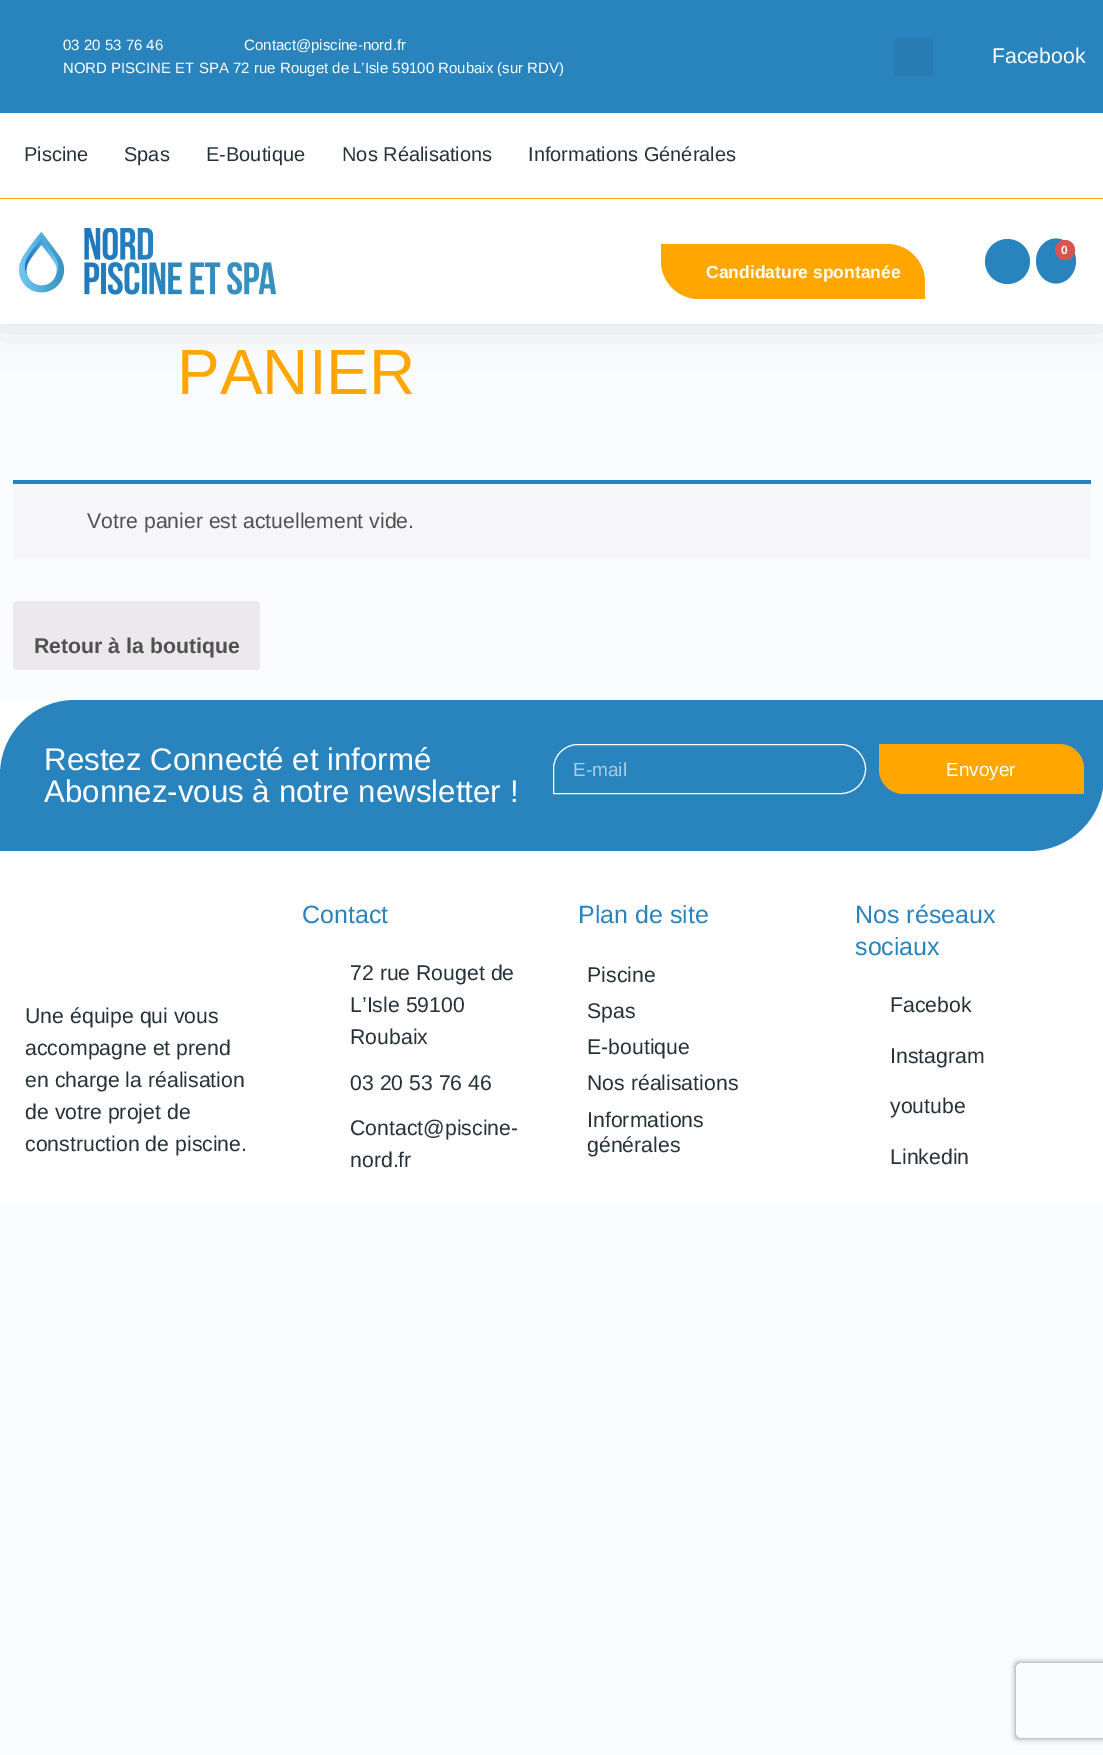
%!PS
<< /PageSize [1103 1755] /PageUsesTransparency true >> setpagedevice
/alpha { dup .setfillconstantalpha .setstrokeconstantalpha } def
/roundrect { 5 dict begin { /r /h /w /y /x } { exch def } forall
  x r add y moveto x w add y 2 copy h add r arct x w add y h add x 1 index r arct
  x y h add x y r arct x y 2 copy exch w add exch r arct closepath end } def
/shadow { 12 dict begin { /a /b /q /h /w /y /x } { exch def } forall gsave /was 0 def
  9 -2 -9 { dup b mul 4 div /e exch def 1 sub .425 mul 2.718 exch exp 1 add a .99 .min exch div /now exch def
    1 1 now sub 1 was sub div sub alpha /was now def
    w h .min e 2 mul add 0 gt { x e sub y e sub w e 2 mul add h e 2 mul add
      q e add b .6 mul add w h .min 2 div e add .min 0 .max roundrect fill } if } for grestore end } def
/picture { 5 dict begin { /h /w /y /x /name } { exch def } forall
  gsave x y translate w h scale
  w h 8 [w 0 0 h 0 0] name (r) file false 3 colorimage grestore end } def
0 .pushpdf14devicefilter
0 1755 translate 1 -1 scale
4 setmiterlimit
0.98 0.988 0.992 setrgbcolor
0 0 1103 1755 rectfill
0 setgray
0 6 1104 324 0 19 0.1 shadow
0.161 0.514 0.741 setrgbcolor
0 0 1103 113 rectfill
/LiberationSans-Regular [15 0 0 -15 0 0] selectfont
1 setgray
63 50 moveto (03 20 53 76 46) show
244 50 moveto (Contact@piscine-nord.fr) show
63 73 moveto (NORD PISCINE ET SPA 72 rue Rouget de L’Isle 59100 Roubaix \(sur RDV\)) show
0.153 0.486 0.706 setrgbcolor
894 38 39 38 4 roundrect fill
/LiberationSans-Regular [21.25 0 0 -21.25 0 0] selectfont
1 setgray
992 63 moveto (Facebook) show
0 113 1103 85 rectfill
1 0.655 0 setrgbcolor
0 198 1103 1 rectfill
/LiberationSans-Regular [20 0 0 -20 0 0] selectfont
0.149 0.196 0.22 setrgbcolor
24 161 moveto (Piscine) show
124 161 moveto (Spas) show
206 161 moveto (E-Boutique) show
342 161 moveto (Nos Réalisations) show
528 161 moveto (Informations Générales) show
1 setgray
0 199 1103 125 rectfill
(img1.rgb) 19 228 257 67 picture
0.161 0.514 0.741 setrgbcolor
newpath 1007.5 261.5 22.5 0 360 arc closepath fill
newpath 1056 238.5 moveto 1067 238.5 1076 248.5 1076 261 curveto 1076 273.5 1067 283.5 1056 283.5 curveto 1045 283.5 1036 273.5 1036 261 curveto 1036 248.5 1045 238.5 1056 238.5 curveto closepath fill
0.851 0.325 0.31 setrgbcolor
newpath 1065 250 10 0 360 arc closepath fill
/LiberationSans-Bold [12 0 0 -12 0 0] selectfont
1 setgray
1061 254 moveto (0) show
1 0.655 0 setrgbcolor
newpath 661 244 moveto 887 244 lineto 908 244 925 261 925 282 curveto 925 299 lineto 699 299 lineto 678 299 661 282 661 261 curveto closepath fill
/LiberationSans-Bold [17.5 0 0 -17.5 0 0] selectfont
1 setgray
706 278 moveto (Candidature spontanée) show
/LiberationSans-Regular [64 0 0 -64 0 0] selectfont
1 0.655 0 setrgbcolor
177 394 moveto (PANIER) show
0.965 0.961 0.973 setrgbcolor
13 484 1078 75 rectfill
0.118 0.522 0.745 setrgbcolor
13 480 1078 4 rectfill
/LiberationSans-Regular [21.25 0 0 -21.25 0 0] selectfont
0.318 setgray
87 528 moveto (Votre panier est actuellement vide.) show
0.922 0.914 0.922 setrgbcolor
13 601 247 69 4 roundrect fill
/LiberationSans-Bold [21.25 0 0 -21.25 0 0] selectfont
0.318 setgray
34 653 moveto (Retour à la boutique) show
1 setgray
0 700 1103 504 rectfill
0.161 0.514 0.741 setrgbcolor
newpath 75 700 moveto 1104 700 lineto 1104 776 lineto 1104 817.5 1070.5 851 1029 851 curveto 0 851 lineto 0 775 lineto 0 733.5 33.5 700 75 700 curveto closepath fill
/LiberationSans-Regular [31.25 0 0 -31.25 0 0] selectfont
1 setgray
44 770 moveto (Restez Connecté et informé) show
44 802 moveto (Abonnez-vous à notre newsletter !) show
newpath 578 744.5 moveto 841 744.5 lineto 854.5 744.5 865.5 755.5 865.5 769 curveto 865.5 782.5 854.5 793.5 841 793.5 curveto 553.5 793.5 lineto 553.5 769 lineto 553.5 755.5 564.5 744.5 578 744.5 curveto closepath stroke
/LiberationSans-Regular [19 0 0 -19 0 0] selectfont
0.663 0.804 0.898 setrgbcolor
573 776 moveto (E-mail) show
1 0.655 0 setrgbcolor
newpath 879 744 moveto 1059 744 lineto 1073 744 1084 755 1084 769 curveto 1084 794 lineto 904 794 lineto 890 794 879 783 879 769 curveto closepath fill
1 setgray
946 776 moveto (Envoyer) show
/LiberationSans-Regular [21.25 0 0 -21.25 0 0] selectfont
0.149 0.196 0.22 setrgbcolor
25 1023 moveto (Une équipe qui vous) show
25 1055 moveto (accompagne et prend) show
25 1087 moveto (en charge la réalisation) show
25 1119 moveto (de votre projet de) show
25 1151 moveto (construction de piscine.) show
/LiberationSans-Regular [25 0 0 -25 0 0] selectfont
0.161 0.514 0.741 setrgbcolor
302 923 moveto (Contact) show
/LiberationSans-Regular [21.25 0 0 -21.25 0 0] selectfont
0.149 0.196 0.22 setrgbcolor
350 980 moveto (72 rue Rouget de) show
350 1012 moveto (L’Isle 59100) show
350 1044 moveto (Roubaix) show
350 1090 moveto (03 20 53 76 46) show
350 1135 moveto (Contact@piscine-) show
350 1167 moveto (nord.fr) show
/LiberationSans-Regular [25 0 0 -25 0 0] selectfont
0.161 0.514 0.741 setrgbcolor
578 923 moveto (Plan de site) show
/LiberationSans-Regular [21.25 0 0 -21.25 0 0] selectfont
0.149 0.196 0.22 setrgbcolor
587 982 moveto (Piscine) show
587 1018 moveto (Spas) show
587 1054 moveto (E-boutique) show
587 1090 moveto (Nos réalisations) show
587 1127 moveto (Informations) show
587 1152 moveto (générales) show
/LiberationSans-Regular [25 0 0 -25 0 0] selectfont
0.161 0.514 0.741 setrgbcolor
855 923 moveto (Nos réseaux) show
855 955 moveto (sociaux) show
/LiberationSans-Regular [21.25 0 0 -21.25 0 0] selectfont
0.149 0.196 0.22 setrgbcolor
890 1012 moveto (Facebok) show
890 1063 moveto (Instagram) show
890 1113 moveto (youtube) show
890 1164 moveto (Linkedin) show
gsave
newpath 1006 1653 moveto 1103 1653 lineto 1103 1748 lineto 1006 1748 lineto closepath 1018.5 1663 moveto 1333.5 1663 lineto 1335 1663 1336 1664 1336 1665.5 curveto 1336 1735.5 lineto 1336 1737 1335 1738 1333.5 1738 curveto 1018.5 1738 lineto 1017 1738 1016 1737 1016 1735.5 curveto 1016 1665.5 lineto 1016 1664 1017 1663 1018.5 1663 curveto closepath eoclip newpath
0.502 setgray
1016 1663 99 75 2.5 3 1 shadow
grestore
.poppdf14devicefilter showpage
